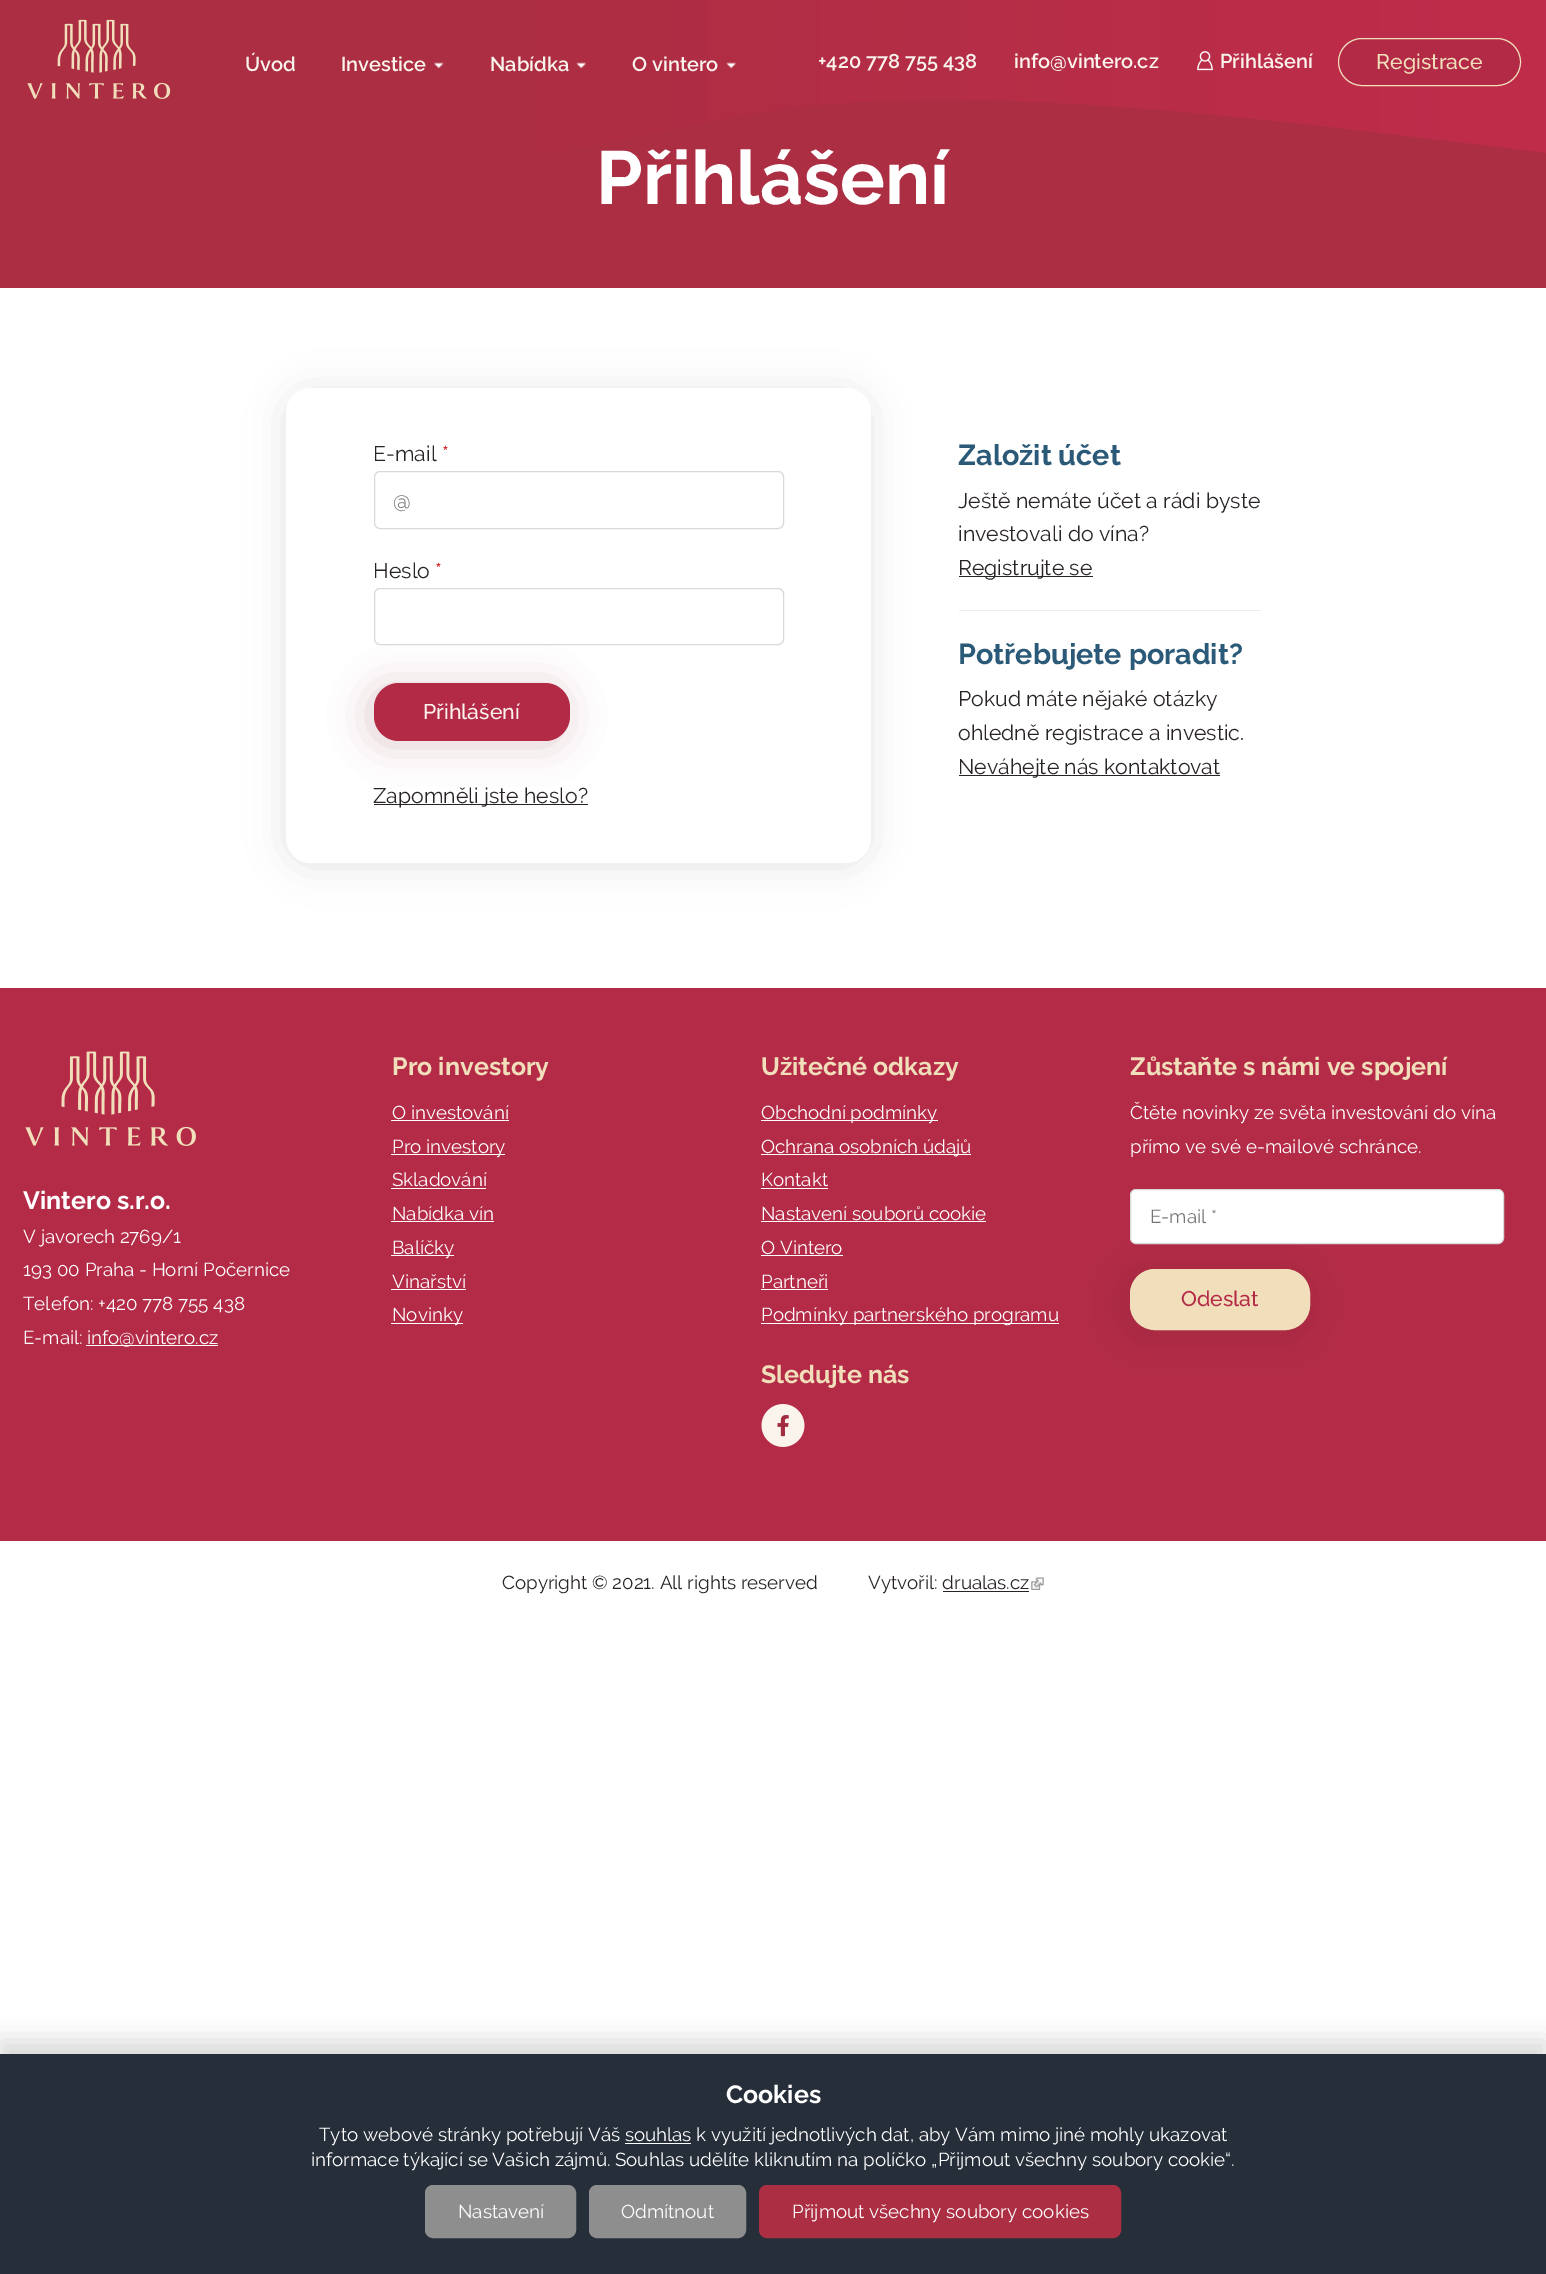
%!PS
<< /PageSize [1546 2274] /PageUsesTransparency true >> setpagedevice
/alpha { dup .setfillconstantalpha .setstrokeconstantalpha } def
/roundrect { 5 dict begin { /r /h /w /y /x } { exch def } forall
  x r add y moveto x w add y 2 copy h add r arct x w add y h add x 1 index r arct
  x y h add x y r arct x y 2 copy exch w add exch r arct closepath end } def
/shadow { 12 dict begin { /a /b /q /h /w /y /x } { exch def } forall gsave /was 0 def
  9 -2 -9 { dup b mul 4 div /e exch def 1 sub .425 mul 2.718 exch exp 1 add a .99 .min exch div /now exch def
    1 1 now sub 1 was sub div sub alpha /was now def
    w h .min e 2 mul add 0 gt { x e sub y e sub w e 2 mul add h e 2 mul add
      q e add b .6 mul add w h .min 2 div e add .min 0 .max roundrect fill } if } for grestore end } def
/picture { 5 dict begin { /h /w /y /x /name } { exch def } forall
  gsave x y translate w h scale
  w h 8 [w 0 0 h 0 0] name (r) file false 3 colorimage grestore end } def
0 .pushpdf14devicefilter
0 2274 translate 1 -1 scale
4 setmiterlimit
1 setgray
0 0 1546 2274 rectfill
gsave newpath 0 0 moveto 1546 0 lineto 1546 231 lineto 0 231 lineto closepath clip newpath
<< /ShadingType 2 /ColorSpace /DeviceRGB /Coords [0 144 1546 144] /Extend [true true] /Function << /FunctionType 3 /Domain [0 1] /Functions [<< /FunctionType 2 /Domain [0 1] /C0 [0.671 0.18 0.259] /C1 [0.671 0.18 0.259] /N 1 >> << /FunctionType 2 /Domain [0 1] /C0 [0.671 0.18 0.259] /C1 [0.753 0.173 0.294] /N 1 >>] /Bounds [0.29] /Encode [0 1 0 1] >> >> shfill grestore
(img1.rgb) 27 19 144 80 picture
/Raleway-SemiBold [20 0 0 -20 0 0] selectfont
0.98 0.957 0.929 setrgbcolor
245 71 moveto (Úvod) show
341 71 moveto (Investice) show
(img2.rgb) 434 62 10 7 picture
490 71 moveto (Nabídka) show
(img3.rgb) 576 62 11 7 picture
632 71 moveto (O vintero) show
(img4.rgb) 726 62 11 7 picture
818 68 moveto (+420 778 755 438) show
1014 68 moveto (info@vintero.cz) show
(img5.rgb) 1197 51 16 20 picture
1220 68 moveto (Přihlášení) show
0.702 0.165 0.278 setrgbcolor
1338.5 38.5 182 47 23.5 roundrect gsave fill grestore
0.945 0.875 0.733 setrgbcolor
stroke
/Raleway-Medium [21.25 0 0 -21.25 0 0] selectfont
1376 69 moveto (Registrace) show
gsave
0 100 1546 188 rectclip
0.671 0.18 0.259 setrgbcolor
newpath 1546 153 moveto 1546 512 lineto 0 512 lineto 0 231 lineto 248 228 514 157 755 114 curveto 965 77 1286 122 1546 153 curveto closepath eofill
grestore
/Raleway-Bold [75 0 0 -75 0 0] selectfont
1 setgray
596 204 moveto (Přihlášení) show
0 setgray
285 391 585 475 25 19 0.11 shadow
1 setgray
286 388 585 475 25 roundrect fill
/Raleway-Regular [21.25 0 0 -21.25 0 0] selectfont
0.157 0.141 0.137 setrgbcolor
373 461 moveto (E-mail) show
0.8 0 0 setrgbcolor
442 461 moveto (*) show
0.851 setgray
374.5 471.5 409 57 5.5 roundrect stroke
0.459 setgray
393 508 moveto (@) show
0.157 0.141 0.137 setrgbcolor
373 578 moveto (Heslo) show
0.8 0 0 setrgbcolor
435 578 moveto (*) show
0.376 0.071 0.122 setrgbcolor
369 686 196 59 25 19 0.2 shadow
0.851 setgray
374.5 588.5 409 56 5.5 roundrect stroke
0.702 0.165 0.278 setrgbcolor
374 683 196 58 25 roundrect fill
/Raleway-Medium [21.25 0 0 -21.25 0 0] selectfont
0.98 0.957 0.929 setrgbcolor
423 719 moveto (Přihlášení) show
0.157 0.141 0.137 setrgbcolor
374 804 214 1 rectfill
/Raleway-Regular [21.25 0 0 -21.25 0 0] selectfont
373 803 moveto (Zapomněli jste heslo?) show
/Raleway-Bold [28.75 0 0 -28.75 0 0] selectfont
0.169 0.349 0.471 setrgbcolor
958 465 moveto (Založit účet) show
/Raleway-Regular [21.25 0 0 -21.25 0 0] selectfont
0.157 0.141 0.137 setrgbcolor
958 508 moveto (Ještě nemáte účet a rádi byste) show
958 541 moveto (investovali do vína?) show
959 576 134 1 rectfill
958 575 moveto (Registrujte se) show
0.914 0.929 0.949 setrgbcolor
959 610 302 1 rectfill
/Raleway-Bold [28.75 0 0 -28.75 0 0] selectfont
0.169 0.349 0.471 setrgbcolor
958 664 moveto (Potřebujete poradit?) show
/Raleway-Regular [21.25 0 0 -21.25 0 0] selectfont
0.157 0.141 0.137 setrgbcolor
958 706 moveto (Pokud máte nějaké otázky) show
958 740 moveto (ohledně registrace a investic.) show
959 775 261 1 rectfill
958 774 moveto (Neváhejte nás kontaktovat) show
0.702 0.169 0.278 setrgbcolor
0 988 1546 553 rectfill
(img6.rgb) 25 1051 171 95 picture
/Raleway-Bold [25 0 0 -25 0 0] selectfont
1 setgray
23 1209 moveto (Vintero s.r.o.) show
/Raleway-Regular [18.75 0 0 -18.75 0 0] selectfont
23 1243 moveto (V javorech 2769/1) show
23 1276 moveto (193 00 Praha - Horní Počernice) show
23 1310 moveto (Telefon: +420 778 755 438) show
23 1344 moveto (E-mail:) show
86 1345 132 1 rectfill
87 1344 moveto (info@vintero.cz) show
/Raleway-Bold [25 0 0 -25 0 0] selectfont
0.945 0.875 0.733 setrgbcolor
392 1075 moveto (Pro investory) show
/Raleway-Regular [18.75 0 0 -18.75 0 0] selectfont
1 setgray
392 1119 moveto (O investování) show
391 1120 118 1 rectfill
391 1154 114 1 rectfill
392 1153 moveto (Pro investory) show
392 1186 moveto (Skladování) show
391 1188 95 1 rectfill
392 1220 moveto (Nabídka vín) show
391 1221 103 1 rectfill
391 1255 63 1 rectfill
392 1254 moveto (Balíčky) show
392 1288 moveto (Vinařství) show
391 1289 75 1 rectfill
391 1323 72 1 rectfill
392 1321 moveto (Novinky) show
/Raleway-Bold [25 0 0 -25 0 0] selectfont
0.945 0.875 0.733 setrgbcolor
761 1075 moveto (Užitečné odkazy) show
1 setgray
761 1120 177 1 rectfill
/Raleway-Regular [18.75 0 0 -18.75 0 0] selectfont
761 1119 moveto (Obchodní podmínky) show
761 1154 210 1 rectfill
761 1153 moveto (Ochrana osobních údajů) show
761 1186 moveto (Kontakt) show
761 1188 67 1 rectfill
761 1220 moveto (Nastavení souborů cookie) show
761 1221 225 1 rectfill
761 1254 moveto (O Vintero) show
761 1255 82 1 rectfill
761 1288 moveto (Partneři) show
761 1289 67 1 rectfill
761 1323 298 1 rectfill
761 1321 moveto (Podmínky partnerského programu) show
/Raleway-Bold [25 0 0 -25 0 0] selectfont
0.945 0.875 0.733 setrgbcolor
761 1383 moveto (Sledujte nás) show
(img7.rgb) 761 1404 44 43 picture
1130 1075 moveto (Zůstaňte s námi ve spojení) show
/Raleway-Regular [18.75 0 0 -18.75 0 0] selectfont
1 setgray
1130 1119 moveto (Čtěte novinky ze světa investování do vína) show
1130 1153 moveto (přímo ve své e-mailové schránce.) show
0.376 0.071 0.122 setrgbcolor
1125 1273 180 61 25 19 0.2 shadow
1 setgray
1130.5 1189.5 373 54 5.5 roundrect gsave fill grestore
0.851 setgray
stroke
0.459 setgray
1150 1223 moveto (E-mail *) show
0.945 0.875 0.733 setrgbcolor
1130.5 1269.5 179 60 24.5 roundrect gsave fill grestore
stroke
/Raleway-Medium [21.25 0 0 -21.25 0 0] selectfont
0.702 0.165 0.278 setrgbcolor
1181 1306 moveto (Odeslat) show
/Raleway-Regular [18.75 0 0 -18.75 0 0] selectfont
0.157 0.141 0.137 setrgbcolor
502 1589 moveto (Copyright © 2021. All rights reserved) show
868 1589 moveto (Vytvořil: drualas.cz) show
(img8.rgb) 1031 1577 13 13 picture
943 1591 86 1 rectfill
0 setgray
0 2041 1546 222 0 12.5 0.15 shadow
0.145 0.18 0.224 setrgbcolor
0 2054 1546 220 rectfill
/Raleway-Bold [25 0 0 -25 0 0] selectfont
1 setgray
726 2103 moveto (Cookies) show
/Raleway-Regular [18.75 0 0 -18.75 0 0] selectfont
319 2141 moveto (Tyto webové stránky potřebují Váš souhlas k využití jednotlivých dat, aby Vám mimo jiné mohly ukazovat) show
625 2143 66 1 rectfill
311 2166 moveto (informace týkající se Vašich zájmů. Souhlas udělíte kliknutím na políčko „Přijmout všechny soubory cookie“.) show
0.557 setgray
425.5 2185.5 150 52 7.5 roundrect gsave fill grestore
stroke
1 setgray
458 2218 moveto (Nastavení) show
0.557 setgray
589.5 2185.5 156 52 7.5 roundrect gsave fill grestore
stroke
1 setgray
621 2218 moveto (Odmítnout) show
0.671 0.18 0.259 setrgbcolor
759.5 2185.5 361 52 7.5 roundrect gsave fill grestore
stroke
1 setgray
792 2218 moveto (Přijmout všechny soubory cookies) show
.poppdf14devicefilter showpage
